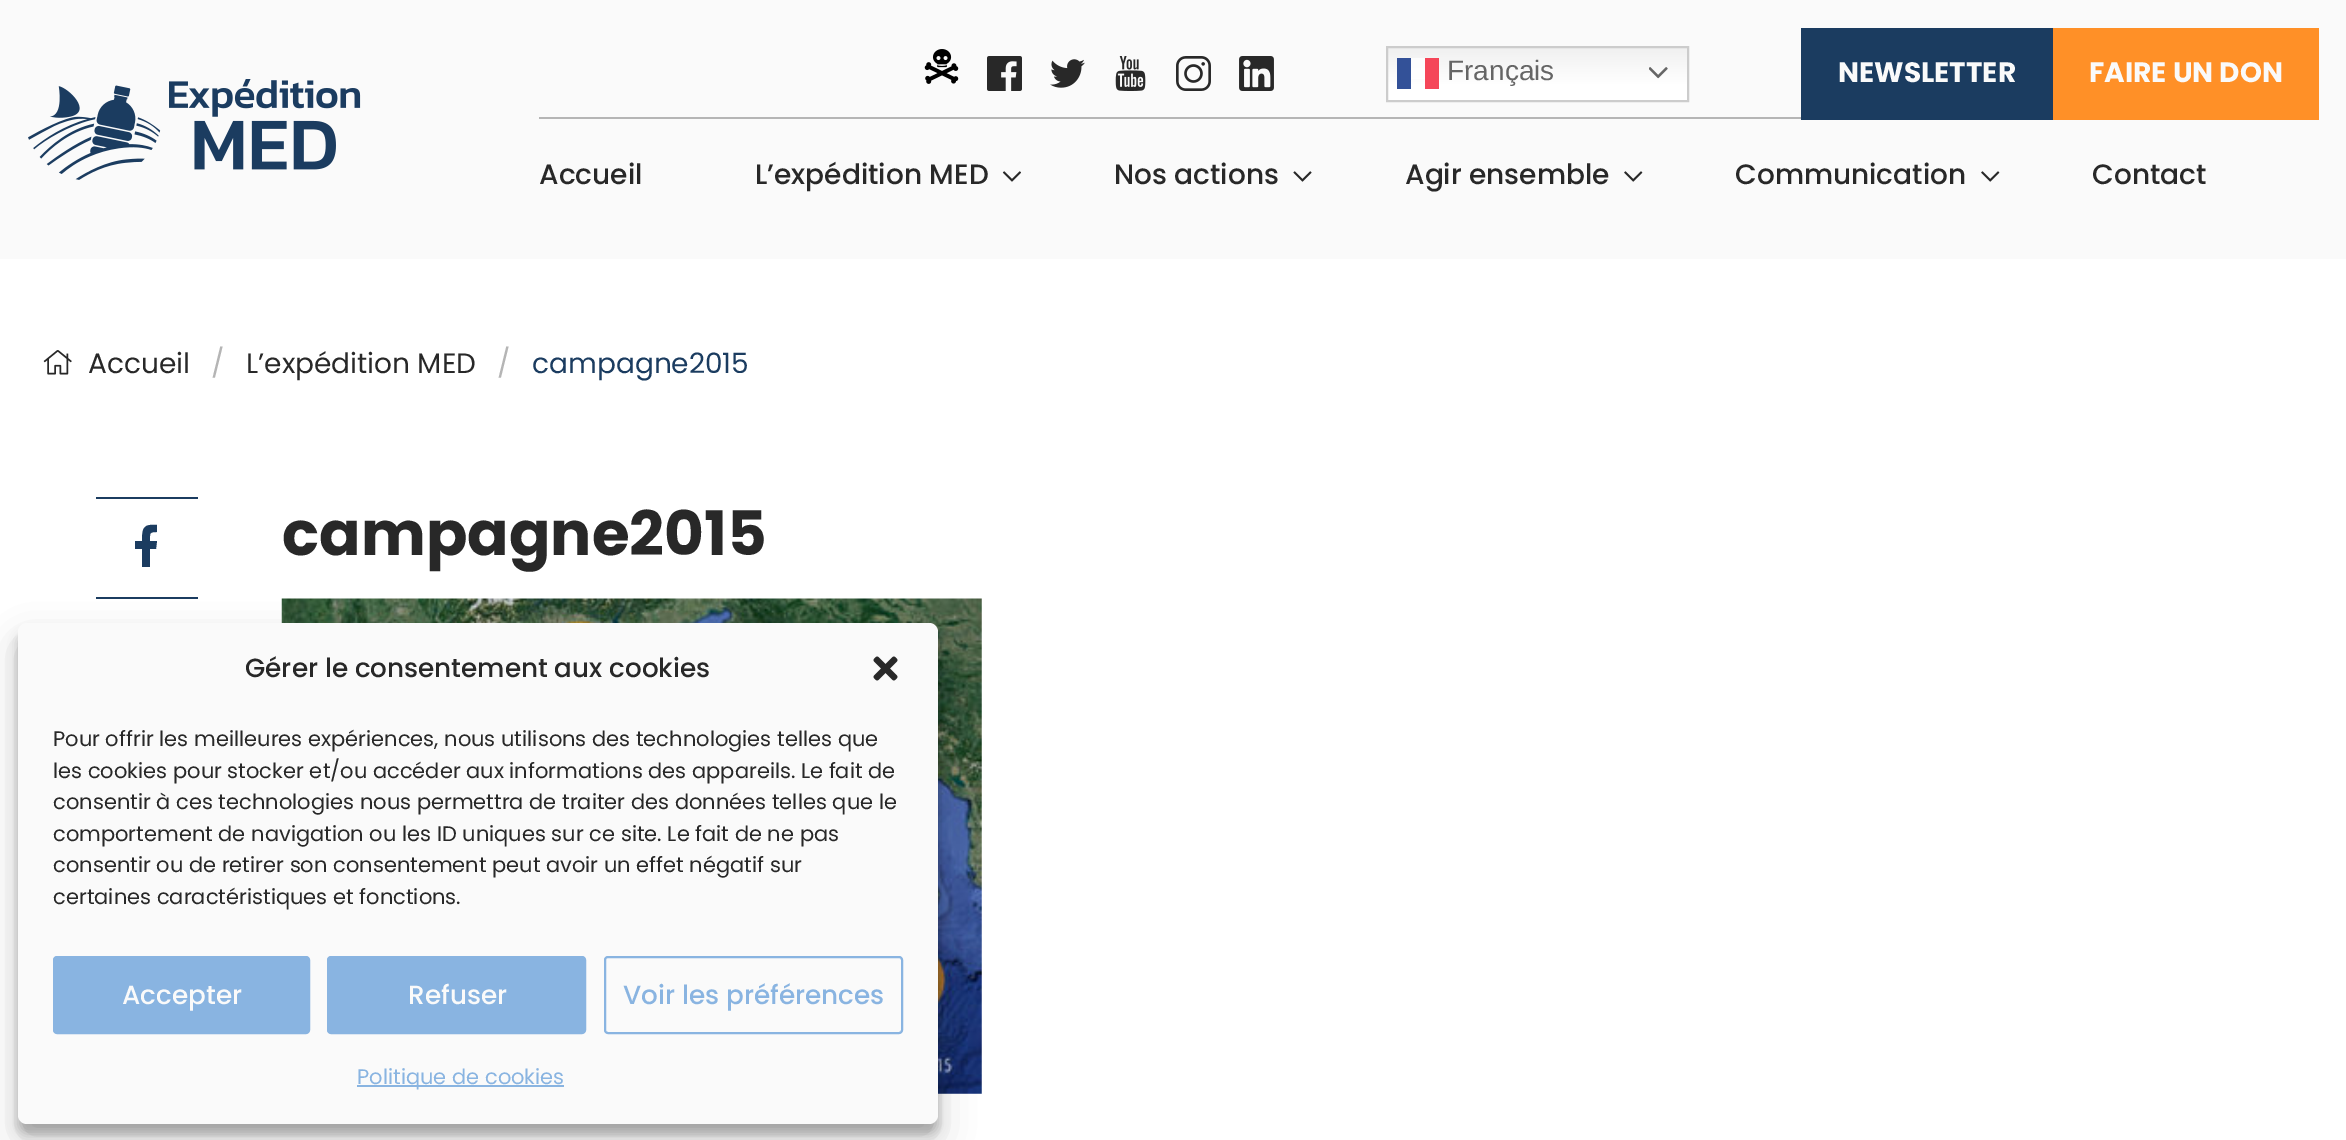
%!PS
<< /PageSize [2346 1140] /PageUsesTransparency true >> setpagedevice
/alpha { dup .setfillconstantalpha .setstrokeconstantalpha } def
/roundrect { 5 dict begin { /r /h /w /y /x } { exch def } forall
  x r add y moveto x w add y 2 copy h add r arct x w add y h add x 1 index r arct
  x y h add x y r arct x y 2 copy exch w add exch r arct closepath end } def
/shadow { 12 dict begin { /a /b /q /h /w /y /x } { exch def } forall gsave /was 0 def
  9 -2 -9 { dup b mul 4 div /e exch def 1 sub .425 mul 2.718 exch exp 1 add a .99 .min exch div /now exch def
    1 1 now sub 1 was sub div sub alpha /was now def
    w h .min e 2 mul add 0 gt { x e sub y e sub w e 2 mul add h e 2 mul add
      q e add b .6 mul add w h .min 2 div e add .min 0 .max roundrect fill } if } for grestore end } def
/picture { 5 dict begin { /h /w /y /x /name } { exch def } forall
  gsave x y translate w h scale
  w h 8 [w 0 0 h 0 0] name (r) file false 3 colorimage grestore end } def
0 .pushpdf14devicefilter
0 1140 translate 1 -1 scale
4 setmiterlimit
1 setgray
0 0 2346 1140 rectfill
0.98 setgray
0 0 2346 259 rectfill
(img1.rgb) 28 79 333 101 picture
0.71 setgray
539 117 1262 2 rectfill
(img2.rgb) 924 49 35 35 picture
(img3.rgb) 987 56 35 35 picture
(img4.rgb) 1050 59 35 29 picture
(img5.rgb) 1115 56 31 35 picture
(img6.rgb) 1176 56 35 35 picture
(img7.rgb) 1239 56 35 35 picture
gsave newpath 1388 48 moveto 1687 48 lineto 1687 100 lineto 1388 100 lineto closepath clip newpath
<< /ShadingType 2 /ColorSpace /DeviceRGB /Coords [1537 45 1537 102] /Extend [true true] /Function << /FunctionType 3 /Domain [0 1] /Functions [<< /FunctionType 2 /Domain [0 1] /C0 [0.937 0.937 0.937] /C1 [1 1 1] /N 1 >> << /FunctionType 2 /Domain [0 1] /C0 [1 1 1] /C1 [1 1 1] /N 1 >>] /Bounds [0.7] /Encode [0 1 0 1] >> >> shfill grestore
gsave newpath 1438 58 moveto 1439 58 lineto 1439 89 lineto 1438 89 lineto closepath clip newpath
<< /ShadingType 2 /ColorSpace /DeviceRGB /Coords [1537 45 1537 102] /Extend [true true] /Function << /FunctionType 3 /Domain [0 1] /Functions [<< /FunctionType 2 /Domain [0 1] /C0 [0.949 0.263 0.337] /C1 [0.961 0.275 0.349] /N 1 >> << /FunctionType 2 /Domain [0 1] /C0 [0.961 0.275 0.349] /C1 [0.961 0.275 0.349] /N 1 >>] /Bounds [0.7] /Encode [0 1 0 1] >> >> shfill grestore
gsave newpath 1411 58 moveto 1425 58 lineto 1425 79 lineto 1411 79 lineto closepath clip newpath
<< /ShadingType 2 /ColorSpace /DeviceRGB /Coords [1537 45 1537 102] /Extend [true true] /Function << /FunctionType 3 /Domain [0 1] /Functions [<< /FunctionType 2 /Domain [0 1] /C0 [0.988 0.988 0.988] /C1 [1 1 1] /N 1 >> << /FunctionType 2 /Domain [0 1] /C0 [1 1 1] /C1 [1 1 1] /N 1 >>] /Bounds [0.7] /Encode [0 1 0 1] >> >> shfill grestore
gsave newpath 1425 58 moveto 1438 58 lineto 1438 89 lineto 1425 89 lineto closepath clip newpath
<< /ShadingType 2 /ColorSpace /DeviceRGB /Coords [1537 45 1537 102] /Extend [true true] /Function << /FunctionType 3 /Domain [0 1] /Functions [<< /FunctionType 2 /Domain [0 1] /C0 [0.961 0.275 0.349] /C1 [0.961 0.275 0.349] /N 1 >> << /FunctionType 2 /Domain [0 1] /C0 [0.961 0.275 0.349] /C1 [0.961 0.275 0.349] /N 1 >>] /Bounds [0.7] /Encode [0 1 0 1] >> >> shfill grestore
0.8 setgray
2 setlinewidth
1387 47 301 54 rectstroke
0.2 0.318 0.596 setrgbcolor
1397 58 14 31 rectfill
/LiberationSans-Regular [28 0 0 -28 0 0] selectfont
0.4 setgray
1447 80 moveto (Français) show
(img8.rgb) 1649 67 19 12 picture
0.106 0.235 0.376 setrgbcolor
1801 28 252 92 rectfill
/Poppins-Bold [28 0 0 -28 0 0] selectfont
0.98 setgray
1838 82 moveto (NEWSLETTER) show
1 0.565 0.153 setrgbcolor
2053 28 266 92 rectfill
0.98 setgray
2089 82 moveto (FAIRE UN DON) show
/Poppins-Medium [28 0 0 -28 0 0] selectfont
0.157 setgray
539 184 moveto (Accueil) show
755 184 moveto (L’expédition MED) show
(img9.rgb) 1002 171 19 11 picture
1114 184 moveto (Nos actions) show
(img10.rgb) 1293 171 19 11 picture
1405 184 moveto (Agir ensemble) show
(img11.rgb) 1624 171 19 11 picture
1735 184 moveto (Communication) show
(img11.rgb) 1981 171 19 11 picture
2092 184 moveto (Contact) show
(img12.rgb) 43 350 29 25 picture
/Poppins-Regular [28 0 0 -28 0 0] selectfont
88 373 moveto (Accueil) show
0.71 setgray
211 373 moveto (/) show
0.157 setgray
246 373 moveto (L’expédition MED) show
0.71 setgray
497 373 moveto (/) show
0.106 0.235 0.376 setrgbcolor
532 373 moveto (campagne2015) show
96 497 102 2 rectfill
96 597 102 2 rectfill
newpath 156 549 moveto 150 549 lineto 150 567 lineto 142 567 lineto 142 549 lineto 135 549 lineto 135 541 lineto 142 541 lineto 142 527 144 524 157 525 curveto 157 532 lineto 149 532 150 533 150 541 curveto 157 541 lineto closepath fill
/Poppins-Bold [61.25 0 0 -61.25 0 0] selectfont
0.157 setgray
282 555 moveto (campagne2015) show
(img13.rgb) 281 598 701 496 picture
0 setgray
18 634 920 500 9 5 0.23 shadow
18 641 920 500 9 17.5 0.19 shadow
0.98 setgray
18 623 920 501 9 roundrect fill
/Poppins-Medium [26.25 0 0 -26.25 0 0] selectfont
0.157 setgray
245 677 moveto (Gérer le consentement aux cookies) show
(img14.rgb) 873 656 25 25 picture
/Poppins-Regular [21 0 0 -21 0 0] selectfont
53 746 moveto (Pour offrir les meilleures expériences, nous utilisons des technologies telles que) show
53 778 moveto (les cookies pour stocker et/ou accéder aux informations des appareils. Le fait de) show
53 809 moveto (consentir à ces technologies nous permettra de traiter des données telles que le) show
53 841 moveto (comportement de navigation ou les ID uniques sur ce site. Le fait de ne pas) show
53 872 moveto (consentir ou de retirer son consentement peut avoir un effet négatif sur) show
53 904 moveto (certaines caractéristiques et fonctions.) show
0.537 0.706 0.882 setrgbcolor
54 957 255 76 3 roundrect gsave fill grestore
stroke
/Poppins-Medium [26.25 0 0 -26.25 0 0] selectfont
0.98 setgray
122 1004 moveto (Accepter) show
0.537 0.706 0.882 setrgbcolor
328 957 257 76 3 roundrect gsave fill grestore
stroke
0.98 setgray
408 1004 moveto (Refuser) show
0.537 0.706 0.882 setrgbcolor
605 957 297 76 3 roundrect stroke
623 1004 moveto (Voir les préférences) show
357 1085 207 2 rectfill
/Poppins-Regular [21 0 0 -21 0 0] selectfont
357 1084 moveto (Politique de cookies) show
.poppdf14devicefilter showpage
